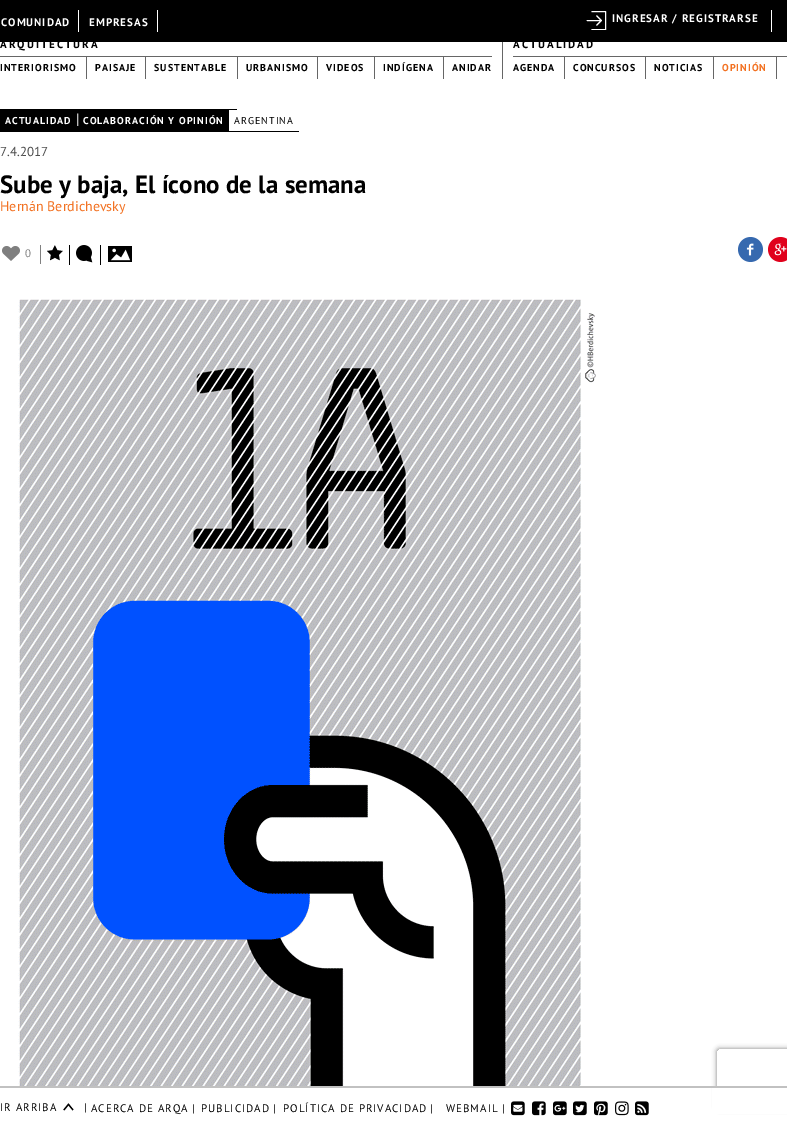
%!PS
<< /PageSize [787 1123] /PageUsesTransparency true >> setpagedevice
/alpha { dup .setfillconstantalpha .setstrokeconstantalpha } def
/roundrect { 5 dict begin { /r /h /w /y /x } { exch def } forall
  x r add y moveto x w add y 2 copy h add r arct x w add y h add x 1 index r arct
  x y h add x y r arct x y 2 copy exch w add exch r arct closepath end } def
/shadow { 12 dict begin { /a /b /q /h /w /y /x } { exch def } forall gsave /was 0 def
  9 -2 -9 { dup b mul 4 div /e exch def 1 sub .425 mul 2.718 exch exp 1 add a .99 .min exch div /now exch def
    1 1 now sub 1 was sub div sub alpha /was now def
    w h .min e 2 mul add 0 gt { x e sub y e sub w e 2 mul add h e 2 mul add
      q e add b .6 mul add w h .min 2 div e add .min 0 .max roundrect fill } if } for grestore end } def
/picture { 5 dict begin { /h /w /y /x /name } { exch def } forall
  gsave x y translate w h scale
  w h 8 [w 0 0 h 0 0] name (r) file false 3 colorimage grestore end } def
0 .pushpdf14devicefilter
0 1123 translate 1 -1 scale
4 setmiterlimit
1 setgray
0 0 787 1123 rectfill
0.4 setgray
502 36 1 43 rectfill
0 setgray
0 0 787 42 rectfill
1 setgray
78 10 1 22 rectfill
/PTSans-Bold [11 0 0 -11 0 0] selectfont
1 26 moveto 1 0 (COMUNIDAD) ashow
157 10 1 22 rectfill
89 26 moveto 1 0 (EMPRESAS) ashow
771 10 1 22 rectfill
(img1.rgb) 586 11 21 19 picture
612 22 moveto 1 0 (INGRESAR / REGISTRARSE) ashow
0 setgray
0 48 moveto 2 0 (ARQUITECTURA) ashow
0.4 setgray
0 56 492 1 rectfill
86 56 1 23 rectfill
/PTSans-Bold [10 0 0 -10 0 0] selectfont
0 setgray
0 71 moveto 1 0 (INTERIORISMO) ashow
0.4 setgray
145 56 1 23 rectfill
0 setgray
95 71 moveto 1 0 (PAISAJE) ashow
0.4 setgray
237 56 1 23 rectfill
0 setgray
154 71 moveto 1 0 (SUSTENTABLE) ashow
0.4 setgray
317 56 1 23 rectfill
0 setgray
246 71 moveto 1 0 (URBANISMO) ashow
0.4 setgray
374 56 1 23 rectfill
0 setgray
326 71 moveto 1 0 (VIDEOS) ashow
0.4 setgray
443 56 1 23 rectfill
0 setgray
383 71 moveto 1 0 (INDÍGENA) ashow
452 71 moveto 1 0 (ANIDAR) ashow
/PTSans-Bold [11 0 0 -11 0 0] selectfont
513 48 moveto 2 0 (ACTUALIDAD) ashow
0.4 setgray
513 56 274 1 rectfill
564 56 1 23 rectfill
/PTSans-Bold [10 0 0 -10 0 0] selectfont
0 setgray
513 71 moveto 1 0 (AGENDA) ashow
0.4 setgray
645 56 1 23 rectfill
0 setgray
573 71 moveto 1 0 (CONCURSOS) ashow
0.4 setgray
713 56 1 23 rectfill
0 setgray
654 71 moveto 1 0 (NOTICIAS) ashow
0.4 setgray
776 56 1 23 rectfill
0.949 0.443 0.129 setrgbcolor
722 71 moveto 1 0 (OPINIÓN) ashow
0 setgray
0 109 237 23 rectfill
1 setgray
5 124 moveto 1 0 (ACTUALIDAD) ashow
/PTSans-Regular [15 0 0 -15 0 0] selectfont
76 124 moveto (|) show
/PTSans-Bold [10 0 0 -10 0 0] selectfont
83 124 moveto 1 0 (COLABORACIÓN Y OPINIÓN) ashow
229 110 8 21 rectfill
0 setgray
229 131 70 1 rectfill
/PTSans-Regular [10 0 0 -10 0 0] selectfont
234 124 moveto 1 0 (ARGENTINA) ashow
/PTSans-Regular [13 0 0 -13 0 0] selectfont
0.302 setgray
0 156 moveto (7.4.2017) show
/PTSans-Bold [25 0 0 -25 0 0] selectfont
0 setgray
0 193 moveto (Sube y baja, El ícono de la semana) show
/PTSans-Regular [14 0 0 -14 0 0] selectfont
0.949 0.443 0.129 setrgbcolor
0 211 moveto (Hernán Berdichevsky) show
(img2.rgb) 2 246 18 15 picture
0.502 setgray
40 245 1 19 rectfill
/PTSans-Regular [11 0 0 -11 0 0] selectfont
25 257 moveto (0) show
(img3.rgb) 47 245 16 16 picture
(img4.rgb) 76 245 17 18 picture
0 setgray
100 245 1 20 rectfill
69 245 1 20 rectfill
(img5.rgb) 108 246 24 16 picture
(img6.rgb) 738 237 25 25 picture
(img7.rgb) 768 237 19 25 picture
(img8.rgb) 18 299 578 787 picture
gsave
newpath 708 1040 moveto 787 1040 lineto 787 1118 lineto 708 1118 lineto closepath 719 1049 moveto 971 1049 lineto 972 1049 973 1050 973 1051 curveto 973 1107 lineto 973 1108 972 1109 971 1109 curveto 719 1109 lineto 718 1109 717 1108 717 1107 curveto 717 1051 lineto 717 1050 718 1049 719 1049 curveto closepath eoclip newpath
0.502 setgray
717 1049 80 60 2 2.5 1 shadow
grestore
1 setgray
712 1088 75 26 rectfill
0.757 setgray
0 1086 787 2 rectfill
0 setgray
0 1111 moveto 1 0 (IR ARRIBA) ashow
(img9.rgb) 63 1103 11 8 picture
84 1111 moveto 1 0 (|) ashow
91 1112 moveto 1 0 (ACERCA DE ARQA) ashow
192 1112 moveto 1 0 (|) ashow
201 1112 moveto 1 0 (PUBLICIDAD) ashow
273 1112 moveto 1 0 (|) ashow
283 1112 moveto 1 0 (POLÍTICA DE PRIVACIDAD) ashow
430 1112 moveto 1 0 (|) ashow
446 1112 moveto 1 0 (WEBMAIL) ashow
502 1112 moveto 1 0 (|) ashow
(img10.rgb) 511 1101 14 15 picture
(img11.rgb) 532 1101 14 15 picture
(img12.rgb) 553 1101 14 15 picture
(img13.rgb) 573 1101 14 15 picture
(img14.rgb) 594 1101 14 15 picture
(img15.rgb) 615 1101 14 15 picture
(img16.rgb) 635 1101 14 15 picture
.poppdf14devicefilter showpage
